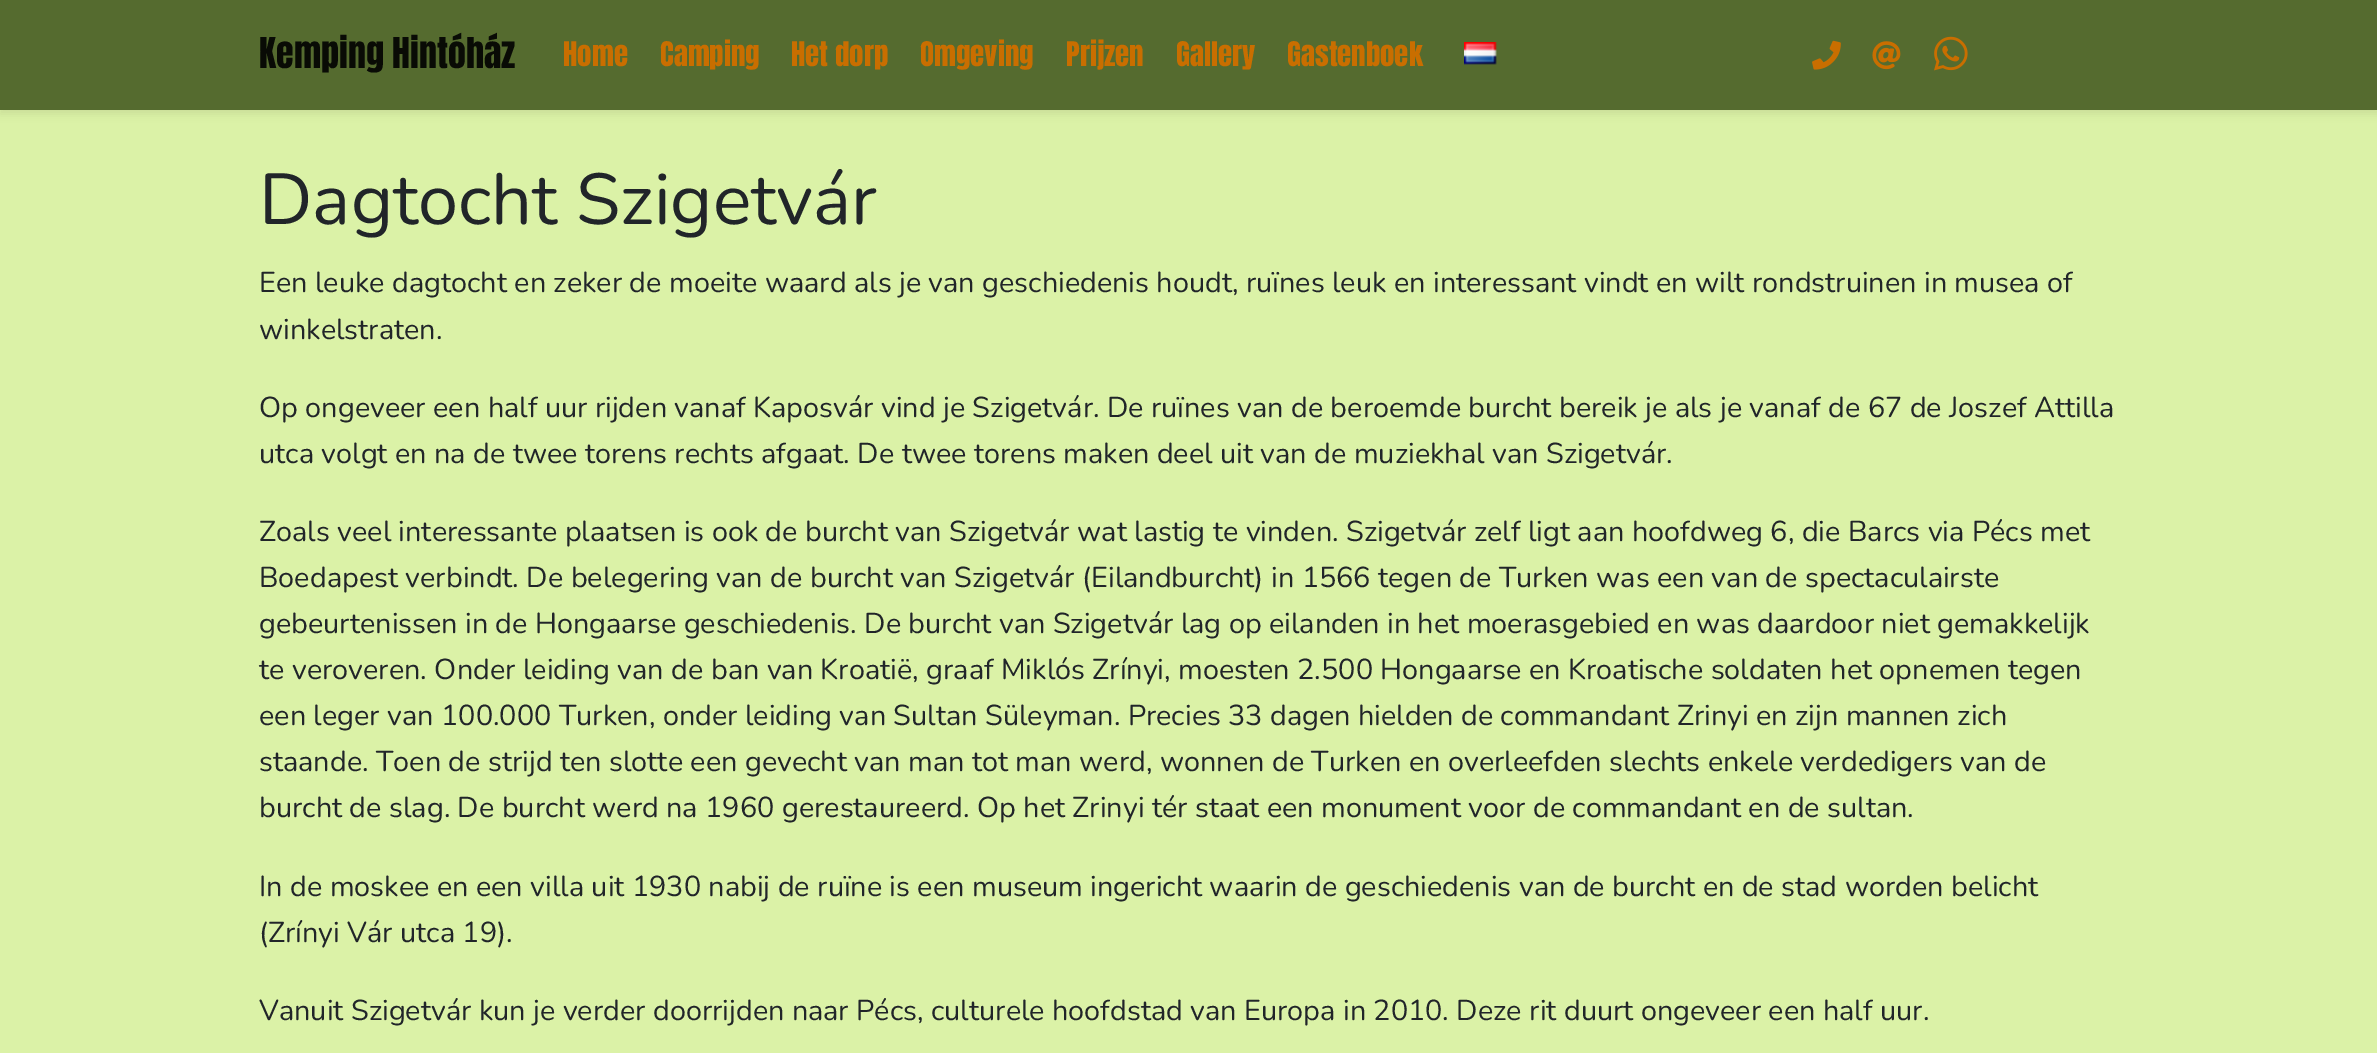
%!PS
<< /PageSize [2377 1053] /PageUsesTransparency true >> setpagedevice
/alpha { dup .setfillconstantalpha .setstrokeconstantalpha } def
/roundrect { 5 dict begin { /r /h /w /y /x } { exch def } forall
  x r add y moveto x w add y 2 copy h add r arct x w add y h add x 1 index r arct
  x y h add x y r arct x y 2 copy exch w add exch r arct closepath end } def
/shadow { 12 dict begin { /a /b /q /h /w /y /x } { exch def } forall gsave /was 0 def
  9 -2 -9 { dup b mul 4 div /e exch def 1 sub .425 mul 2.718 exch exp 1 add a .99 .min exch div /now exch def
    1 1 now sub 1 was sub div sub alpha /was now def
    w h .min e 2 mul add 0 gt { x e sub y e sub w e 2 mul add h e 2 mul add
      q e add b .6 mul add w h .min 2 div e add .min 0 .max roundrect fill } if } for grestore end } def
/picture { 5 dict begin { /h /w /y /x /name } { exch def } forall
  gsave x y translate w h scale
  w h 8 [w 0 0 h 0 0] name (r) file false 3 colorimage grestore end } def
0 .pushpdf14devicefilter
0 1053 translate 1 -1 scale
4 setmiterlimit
0.859 0.949 0.655 setrgbcolor
0 0 2377 1053 rectfill
0 setgray
0 4 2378 110 0 4 0.07 shadow
0.333 0.42 0.184 setrgbcolor
0 0 2377 110 rectfill
/Anton-Regular [36 0 0 -36 0 0] selectfont
0.035 0.043 0.02 setrgbcolor
259 68 moveto (Kemping Hintóház) show
/Anton-Regular [28.8 0 0 -28.8 0 0] selectfont
0.788 0.431 0 setrgbcolor
563 66 moveto (Home) show
660 66 moveto (Camping) show
791 66 moveto (Het dorp) show
920 66 moveto (Omgeving) show
1066 66 moveto (Prijzen) show
1176 66 moveto (Gallery) show
1287 66 moveto (Gastenboek) show
(img1.rgb) 1464 42 33 23 picture
(img2.rgb) 1812 40 29 30 picture
(img3.rgb) 1872 41 29 29 picture
(img4.rgb) 1934 36 34 35 picture
/Nunito-ExtraLight [72 0 0 -72 0 0] selectfont
0.129 0.145 0.161 setrgbcolor
259 224 moveto (Dagtocht Szigetvár) show
/Nunito-ExtraLight [28.8 0 0 -28.8 0 0] selectfont
259 292 moveto (Een leuke dagtocht en zeker de moeite waard als je van geschiedenis houdt, ruïnes leuk en interessant vindt en wilt rondstruinen in musea of) show
259 339 moveto (winkelstraten.) show
259 417 moveto (Op ongeveer een half uur rijden vanaf Kaposvár vind je Szigetvár. De ruïnes van de beroemde burcht bereik je als je vanaf de 67 de Joszef Attilla) show
259 463 moveto (utca volgt en na de twee torens rechts afgaat. De twee torens maken deel uit van de muziekhal van Szigetvár.) show
259 541 moveto (Zoals veel interessante plaatsen is ook de burcht van Szigetvár wat lastig te vinden. Szigetvár zelf ligt aan hoofdweg 6, die Barcs via Pécs met) show
259 587 moveto (Boedapest verbindt. De belegering van de burcht van Szigetvár \(Eilandburcht\) in 1566 tegen de Turken was een van de spectaculairste) show
259 633 moveto (gebeurtenissen in de Hongaarse geschiedenis. De burcht van Szigetvár lag op eilanden in het moerasgebied en was daardoor niet gemakkelijk) show
259 679 moveto (te veroveren. Onder leiding van de ban van Kroatië, graaf Miklós Zrínyi, moesten 2.500 Hongaarse en Kroatische soldaten het opnemen tegen) show
259 725 moveto (een leger van 100.000 Turken, onder leiding van Sultan Süleyman. Precies 33 dagen hielden de commandant Zrinyi en zijn mannen zich) show
259 771 moveto (staande. Toen de strijd ten slotte een gevecht van man tot man werd, wonnen de Turken en overleefden slechts enkele verdedigers van de) show
259 817 moveto (burcht de slag. De burcht werd na 1960 gerestaureerd. Op het Zrinyi tér staat een monument voor de commandant en de sultan.) show
259 896 moveto (In de moskee en een villa uit 1930 nabij de ruïne is een museum ingericht waarin de geschiedenis van de burcht en de stad worden belicht) show
259 942 moveto (\(Zrínyi Vár utca 19\).) show
259 1020 moveto (Vanuit Szigetvár kun je verder doorrijden naar Pécs, culturele hoofdstad van Europa in 2010. Deze rit duurt ongeveer een half uur.) show
.poppdf14devicefilter showpage
